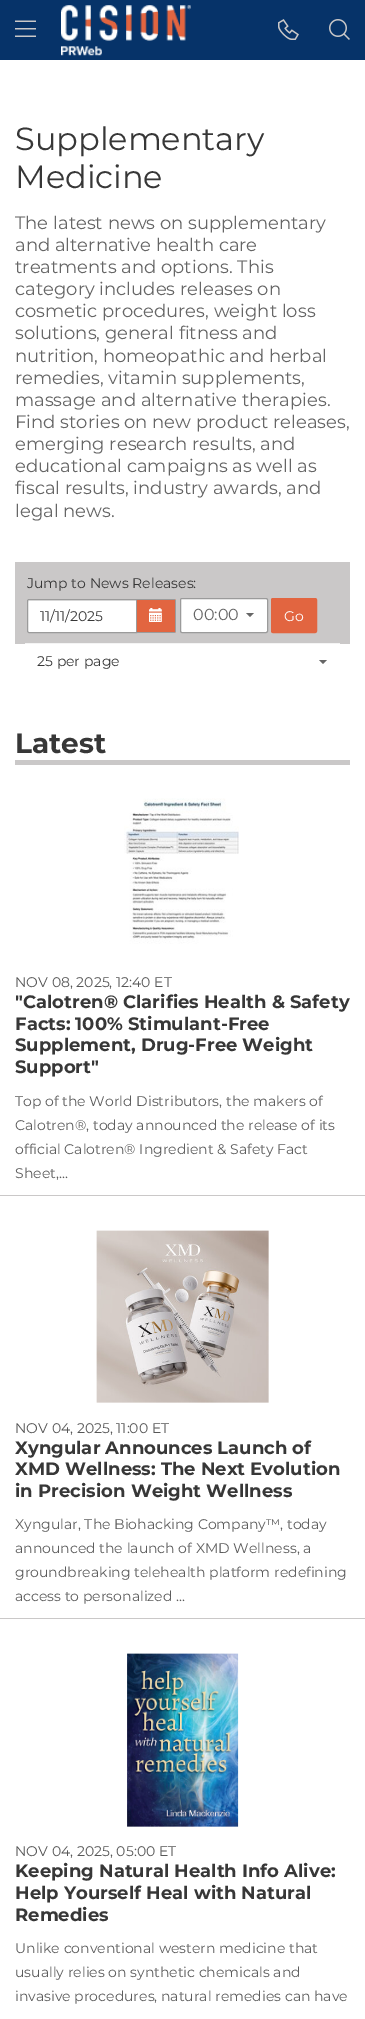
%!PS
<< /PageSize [365 2019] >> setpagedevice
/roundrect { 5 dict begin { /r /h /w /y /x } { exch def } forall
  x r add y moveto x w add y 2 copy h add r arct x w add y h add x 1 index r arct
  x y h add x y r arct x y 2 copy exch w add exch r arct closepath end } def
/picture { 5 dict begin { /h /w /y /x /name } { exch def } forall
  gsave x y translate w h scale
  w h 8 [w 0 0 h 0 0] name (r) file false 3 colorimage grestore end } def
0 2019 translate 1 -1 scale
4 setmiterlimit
1 setgray
0 0 365 2019 rectfill
0.024 0.2 0.412 setrgbcolor
0 0 365 60 rectfill
(img1.rgb) 15 20 21 17 picture
(img2.rgb) 61 5 130 51 picture
(img3.rgb) 278 19 21 21 picture
(img4.rgb) 329 19 21 21 picture
/Montserrat-Regular [32 0 0 -32 0 0] selectfont
0.216 setgray
15 150 moveto (Supplementary) show
15 188 moveto (Medicine) show
/Montserrat-Regular [18 0 0 -18 0 0] selectfont
0.4 setgray
15 229 moveto (The latest news on supplementary) show
15 251 moveto (and alternative health care) show
15 273 moveto (treatments and options. This) show
15 295 moveto (category includes releases on) show
15 317 moveto (cosmetic procedures, weight loss) show
15 339 moveto (solutions, general fitness and) show
15 362 moveto (nutrition, homeopathic and herbal) show
15 384 moveto (remedies, vitamin supplements,) show
15 406 moveto (massage and alternative therapies.) show
15 428 moveto (Find stories on new product releases,) show
15 450 moveto (emerging research results, and) show
15 472 moveto (educational campaigns as well as) show
15 494 moveto (fiscal results, industry awards, and) show
15 517 moveto (legal news.) show
0.792 0.784 0.784 setrgbcolor
15 562 335 82 rectfill
/Montserrat-Regular [14 0 0 -14 0 0] selectfont
0.216 setgray
27 588 moveto (Jump to News Releases:) show
1 setgray
newpath 29 599 moveto 137 599 lineto 137 633 lineto 29 633 lineto 28 633 27 632 27 631 curveto 27 601 lineto 27 600 28 599 29 599 curveto closepath fill
0.925 setgray
newpath 29 601 moveto 136 601 lineto 136 600 lineto 29 600 lineto 28 600 28 601 28 602 curveto 28 601 28 601 29 601 curveto closepath fill
0.608 setgray
newpath 29 599.5 moveto 136.5 599.5 lineto 136.5 632.5 lineto 29 632.5 lineto 28 632.5 27.5 632 27.5 631 curveto 27.5 601 lineto 27.5 600 28 599.5 29 599.5 curveto closepath stroke
0.216 setgray
40 621 moveto (11/11/2025) show
0.886 0.396 0.251 setrgbcolor
newpath 137 599 moveto 174 599 lineto 175 599 176 600 176 601 curveto 176 631 lineto 176 632 175 633 174 633 curveto 137 633 lineto closepath fill
0.608 setgray
137 599 38 1 rectfill
175 600 1 32 rectfill
137 632 38 1 rectfill
(img5.rgb) 149 608 13 14 picture
1 setgray
180.5 598.5 87 34 1.5 roundrect gsave fill grestore
0.608 setgray
stroke
/Montserrat-Regular [16 0 0 -16 0 0] selectfont
0.4 setgray
193 620 moveto (00:00) show
newpath 246 613 moveto 254 613 lineto 250 617 lineto closepath fill
0.886 0.396 0.251 setrgbcolor
271.5 598.5 45 34 1.5 roundrect gsave fill grestore
stroke
/Montserrat-Regular [14 0 0 -14 0 0] selectfont
1 setgray
284 621 moveto (Go) show
0.957 setgray
25 643 315 1 rectfill
0.216 setgray
37 666 moveto (25 per page) show
0.4 setgray
newpath 319 660 moveto 327 660 lineto 323 664 lineto closepath fill
0.792 0.784 0.784 setrgbcolor
15 760 335 5 rectfill
/Montserrat-Bold [28 0 0 -28 0 0] selectfont
0.216 setgray
15 753 moveto (Latest) show
(img6.rgb) 124 798 115 146 picture
/Montserrat-Regular [14 0 0 -14 0 0] selectfont
0.341 setgray
15 987 moveto (NOV 08, 2025, 12:40 ET) show
/Montserrat-Bold [18 0 0 -18 0 0] selectfont
0.216 setgray
15 1008 moveto ("Calotren® Clarifies Health & Safety) show
15 1030 moveto (Facts: 100% Stimulant-Free) show
15 1051 moveto (Supplement, Drug-Free Weight) show
15 1073 moveto (Support") show
/Montserrat-Regular [14 0 0 -14 0 0] selectfont
0.365 setgray
15 1106 moveto (Top of the World Distributors, the makers of) show
15 1130 moveto (Calotren®, today announced the release of its) show
15 1154 moveto (official Calotren® Ingredient & Safety Fact) show
15 1178 moveto (Sheet,...) show
0.792 0.784 0.784 setrgbcolor
0 1195 365 1 rectfill
(img7.rgb) 96 1230 173 173 picture
0.341 setgray
15 1433 moveto (NOV 04, 2025, 11:00 ET) show
/Montserrat-Bold [18 0 0 -18 0 0] selectfont
0.216 setgray
15 1454 moveto (Xyngular Announces Launch of) show
15 1475 moveto (XMD Wellness: The Next Evolution) show
15 1497 moveto (in Precision Weight Wellness) show
/Montserrat-Regular [14 0 0 -14 0 0] selectfont
0.365 setgray
15 1529 moveto (Xyngular, The Biohacking Company™, today) show
15 1553 moveto (announced the launch of XMD Wellness, a) show
15 1577 moveto (groundbreaking telehealth platform redefining) show
15 1601 moveto (access to personalized ...) show
0.792 0.784 0.784 setrgbcolor
0 1618 365 1 rectfill
(img8.rgb) 127 1653 112 174 picture
0.341 setgray
15 1856 moveto (NOV 04, 2025, 05:00 ET) show
/Montserrat-Bold [18 0 0 -18 0 0] selectfont
0.216 setgray
15 1877 moveto (Keeping Natural Health Info Alive:) show
15 1899 moveto (Help Yourself Heal with Natural) show
15 1921 moveto (Remedies) show
/Montserrat-Regular [14 0 0 -14 0 0] selectfont
0.365 setgray
15 1953 moveto (Unlike conventional western medicine that) show
15 1977 moveto (usually relies on synthetic chemicals and) show
15 2001 moveto (invasive procedures, natural remedies can have) show
showpage
